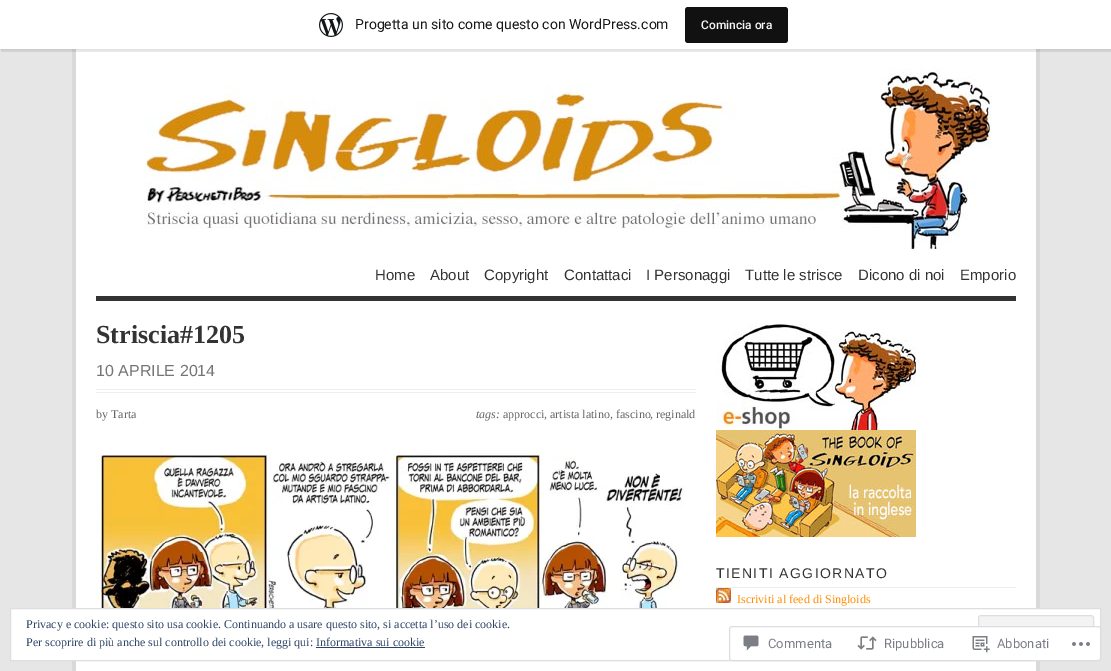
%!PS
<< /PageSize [1111 671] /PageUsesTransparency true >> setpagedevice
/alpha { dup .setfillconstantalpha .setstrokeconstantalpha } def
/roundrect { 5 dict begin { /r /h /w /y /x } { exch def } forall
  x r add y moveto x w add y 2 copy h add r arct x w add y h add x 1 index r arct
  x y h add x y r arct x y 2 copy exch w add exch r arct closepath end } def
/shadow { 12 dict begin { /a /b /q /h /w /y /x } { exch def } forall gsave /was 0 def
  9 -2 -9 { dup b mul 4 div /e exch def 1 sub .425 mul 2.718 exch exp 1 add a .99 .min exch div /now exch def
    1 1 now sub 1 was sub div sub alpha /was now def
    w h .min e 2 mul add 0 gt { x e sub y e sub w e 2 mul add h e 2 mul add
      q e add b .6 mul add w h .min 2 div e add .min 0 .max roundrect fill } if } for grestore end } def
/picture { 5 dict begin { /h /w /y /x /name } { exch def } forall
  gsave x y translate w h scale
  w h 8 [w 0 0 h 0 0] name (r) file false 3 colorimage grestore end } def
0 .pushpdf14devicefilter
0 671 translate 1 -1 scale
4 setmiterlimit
0.902 setgray
0 0 1111 671 rectfill
1 setgray
76 49 960 622 rectfill
0.851 setgray
1036 49 4 622 rectfill
72 49 4 622 rectfill
0 setgray
0 1 1111 49 0 1 0.05 shadow
0.08 alpha
newpath 1 49 moveto 1 52 lineto 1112 52 lineto 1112 3 lineto 1111 3 lineto 1111 49 lineto closepath fill
1 alpha
1 setgray
0 0 1111 49 rectfill
(img1.rgb) 319 13 24 24 picture
/Roboto-Regular [14 0 0 -14 0 0] selectfont
0.09 setgray
355 29 moveto (Progetta un sito come questo con WordPress.com) show
0.067 setgray
685 7 103 36 3 roundrect fill
/Roboto-Medium [12 0 0 -12 0 0] selectfont
0.965 0.969 0.969 setrgbcolor
701 29 moveto (Comincia ora) show
0.2 setgray
96 296 920 5 rectfill
(img2.rgb) 144 69 848 180 picture
/LiberationSans-Regular [15 0 0 -15 0 0] selectfont
375 280 moveto (Home) show
430 280 moveto (About) show
484 280 moveto (Copyright) show
564 280 moveto (Contattaci) show
646 280 moveto (I Personaggi) show
745 280 moveto (Tutte le strisce) show
858 280 moveto (Dicono di noi) show
960 280 moveto (Emporio) show
0.933 setgray
96 389 600 1 rectfill
96 392 600 1 rectfill
/LiberationSerif-Bold [26 0 0 -26 0 0] selectfont
0.2 setgray
96 343 moveto (Striscia#1205) show
/LiberationSans-Regular [16 0 0 -16 0 0] selectfont
0.459 setgray
96 376 moveto (10 APRILE 2014) show
/LiberationSerif-Regular [12 0 0 -12 0 0] selectfont
0.4 setgray
96 418 moveto (by Tarta) show
/LiberationSerif-Italic [12 0 0 -12 0 0] selectfont
476 418 moveto (tags:) show
/LiberationSerif-Regular [12 0 0 -12 0 0] selectfont
503 418 moveto (approcci) show
/LiberationSerif-Italic [12 0 0 -12 0 0] selectfont
544 418 moveto (,) show
/LiberationSerif-Regular [12 0 0 -12 0 0] selectfont
550 418 moveto (artista latino) show
/LiberationSerif-Italic [12 0 0 -12 0 0] selectfont
610 418 moveto (,) show
/LiberationSerif-Regular [12 0 0 -12 0 0] selectfont
616 418 moveto (fascino) show
/LiberationSerif-Italic [12 0 0 -12 0 0] selectfont
650 418 moveto (,) show
/LiberationSerif-Regular [12 0 0 -12 0 0] selectfont
656 418 moveto (reginald) show
(img3.rgb) 96 453 596 155 picture
(img4.rgb) 716 323 200 107 picture
(img5.rgb) 716 430 200 107 picture
0.933 setgray
716 587 300 1 rectfill
/LiberationSans-Regular [14 0 0 -14 0 0] selectfont
0.2 setgray
716 578 moveto 1.4 0 (TIENITI AGGIORNATO) ashow
(img6.rgb) 716 588 15 15 picture
/LiberationSerif-Regular [12 0 0 -12 0 0] selectfont
1 0.549 0 setrgbcolor
737 603 moveto (Iscriviti al feed di Singloids) show
1 setgray
newpath 10.5 608.5 moveto 1100.5 608.5 lineto 1100.5 660.5 lineto 10.5 660.5 lineto closepath gsave fill grestore
0.871 setgray
stroke
0.18 0.267 0.404 setrgbcolor
26 628 moveto (Privacy e cookie: questo sito usa cookie. Continuando a usare questo sito, si accetta l’uso dei cookie.) show
0.953 setgray
978.5 615.5 115 38 2.5 roundrect gsave fill grestore
0.871 setgray
stroke
0.18 0.267 0.404 setrgbcolor
26 646 moveto (Per scoprire di più anche sul controllo dei cookie, leggi qui: Informativa sui cookie) show
316 647 109 1 rectfill
0.98 alpha
1 setgray
729 626 372 35 3 roundrect fill
0.863 0.863 0.871 setrgbcolor
729.5 626.5 371 34 2.5 roundrect stroke
1 alpha
(img7.rgb) 743 635 16 16 picture
/Roboto-Regular [13 0 0 -13 0 0] selectfont
0.482 0.498 0.522 setrgbcolor
768 648 moveto (Commenta) show
(img8.rgb) 857 636 20 14 picture
884 648 moveto (Ripubblica) show
(img9.rgb) 972 636 18 17 picture
997 648 moveto (Abbonati) show
(img10.rgb) 1072 642 18 4 picture
.poppdf14devicefilter showpage
